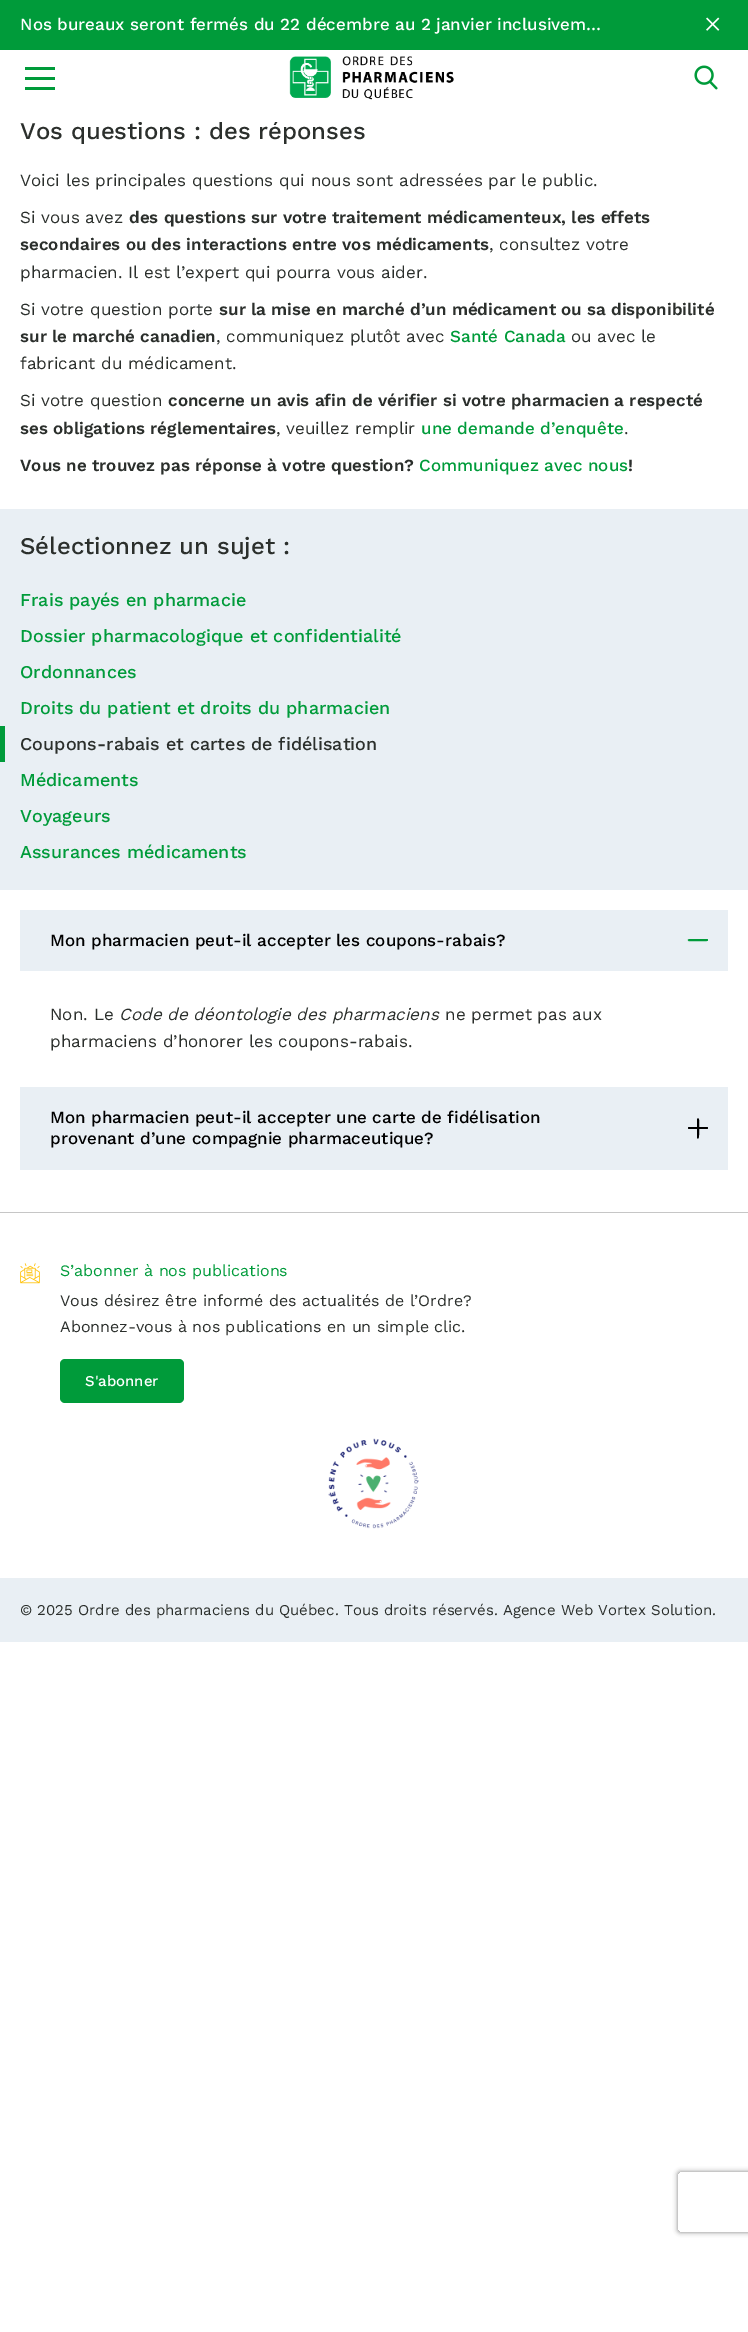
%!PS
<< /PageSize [748 2332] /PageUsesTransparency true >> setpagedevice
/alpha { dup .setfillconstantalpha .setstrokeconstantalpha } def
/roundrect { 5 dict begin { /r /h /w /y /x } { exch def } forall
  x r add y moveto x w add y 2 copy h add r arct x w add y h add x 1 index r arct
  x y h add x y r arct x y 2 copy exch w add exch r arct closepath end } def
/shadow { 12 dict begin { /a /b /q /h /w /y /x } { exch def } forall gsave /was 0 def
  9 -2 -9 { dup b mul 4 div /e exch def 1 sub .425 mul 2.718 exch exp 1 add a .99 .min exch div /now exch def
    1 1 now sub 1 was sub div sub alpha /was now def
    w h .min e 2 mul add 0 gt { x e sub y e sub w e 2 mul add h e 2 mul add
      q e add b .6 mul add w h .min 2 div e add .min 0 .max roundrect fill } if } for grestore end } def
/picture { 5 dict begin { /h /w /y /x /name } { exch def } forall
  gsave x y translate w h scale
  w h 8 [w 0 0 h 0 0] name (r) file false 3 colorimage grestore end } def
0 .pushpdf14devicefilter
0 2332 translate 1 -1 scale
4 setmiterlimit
1 setgray
0 0 748 2332 rectfill
0 0.608 0.227 setrgbcolor
0 0 748 50 rectfill
/WorkSans-Medium [17 0 0 -17 0 0] selectfont
1 setgray
20 30 moveto (Nos bureaux seront fermés du 22 décembre au 2 janvier inclusivem…) show
(img1.rgb) 706 17 14 14 picture
/WorkSans-Medium [24 0 0 -24 0 0] selectfont
0.169 0.184 0.173 setrgbcolor
20 139 moveto (Vos questions : des réponses) show
1 setgray
139 121 139 1 rectfill
0 0.608 0.227 setrgbcolor
25 77 30 3 rectfill
25 67 30 3 rectfill
25 87 30 3 rectfill
(img2.rgb) 289 56 165 44 picture
(img3.rgb) 694 65 24 25 picture
/WorkSans-Regular [17 0 0 -17 0 0] selectfont
0.169 0.184 0.173 setrgbcolor
20 186 moveto (Voici les principales questions qui nous sont adressées par le public.) show
20 223 moveto (Si vous avez) show
/WorkSans-SemiBold [17 0 0 -17 0 0] selectfont
129 223 moveto (des questions sur votre traitement médicamenteux, les effets) show
20 250 moveto (secondaires ou des interactions entre vos médicaments) show
/WorkSans-Regular [17 0 0 -17 0 0] selectfont
489 250 moveto (, consultez votre) show
20 278 moveto (pharmacien. Il est l’expert qui pourra vous aider.) show
20 315 moveto (Si votre question porte) show
/WorkSans-SemiBold [17 0 0 -17 0 0] selectfont
219 315 moveto (sur la mise en marché d’un médicament ou sa disponibilité) show
20 342 moveto (sur le marché canadien) show
/WorkSans-Regular [17 0 0 -17 0 0] selectfont
216 342 moveto (, communiquez plutôt avec) show
/WorkSans-Medium [17 0 0 -17 0 0] selectfont
0 0.608 0.227 setrgbcolor
450 342 moveto (Santé Canada) show
/WorkSans-Regular [17 0 0 -17 0 0] selectfont
0.169 0.184 0.173 setrgbcolor
571 342 moveto (ou avec le) show
20 369 moveto (fabricant du médicament.) show
20 406 moveto (Si votre question) show
/WorkSans-SemiBold [17 0 0 -17 0 0] selectfont
168 406 moveto (concerne un avis afin de vérifier si votre pharmacien a respecté) show
20 434 moveto (ses obligations réglementaires) show
/WorkSans-Regular [17 0 0 -17 0 0] selectfont
276 434 moveto (, veuillez remplir) show
/WorkSans-Medium [17 0 0 -17 0 0] selectfont
0 0.608 0.227 setrgbcolor
421 434 moveto (une demande d’enquête) show
/WorkSans-Regular [17 0 0 -17 0 0] selectfont
0.169 0.184 0.173 setrgbcolor
624 434 moveto (.) show
/WorkSans-SemiBold [17 0 0 -17 0 0] selectfont
20 471 moveto (Vous ne trouvez pas réponse à votre question?) show
/WorkSans-Medium [17 0 0 -17 0 0] selectfont
0 0.608 0.227 setrgbcolor
419 471 moveto (Communiquez avec nous) show
/WorkSans-SemiBold [17 0 0 -17 0 0] selectfont
0.169 0.184 0.173 setrgbcolor
628 471 moveto (!) show
0.914 0.937 0.957 setrgbcolor
0 509 748 381 rectfill
/WorkSans-Medium [24 0 0 -24 0 0] selectfont
0.169 0.184 0.173 setrgbcolor
20 554 moveto (Sélectionnez un sujet :) show
/WorkSans-Medium [18 0 0 -18 0 0] selectfont
0 0.608 0.227 setrgbcolor
20 606 moveto (Frais payés en pharmacie) show
20 642 moveto (Dossier pharmacologique et confidentialité) show
20 678 moveto (Ordonnances) show
20 714 moveto (Droits du patient et droits du pharmacien) show
0 726 5 36 rectfill
0.169 0.184 0.173 setrgbcolor
20 750 moveto (Coupons-rabais et cartes de fidélisation) show
0 0.608 0.227 setrgbcolor
20 786 moveto (Médicaments) show
20 822 moveto (Voyageurs) show
20 858 moveto (Assurances médicaments) show
0.914 0.937 0.957 setrgbcolor
20 910 708 61 rectfill
/WorkSans-Medium [17 0 0 -17 0 0] selectfont
0 setgray
50 946 moveto (Mon pharmacien peut-il accepter les coupons-rabais?) show
0 0.608 0.227 setrgbcolor
newpath 707 941 moveto 705 941 689 941.5 688.5 941 curveto 686.5 939 690 939 692 939 curveto 707.5 939 lineto 708 939.5 708 940.5 707.5 941 curveto closepath fill
/WorkSans-Regular [17 0 0 -17 0 0] selectfont
0.169 0.184 0.173 setrgbcolor
50 1020 moveto (Non. Le) show
/WorkSans-Italic [17 0 0 -17 0 0] selectfont
119 1020 moveto (Code de déontologie des pharmaciens) show
/WorkSans-Regular [17 0 0 -17 0 0] selectfont
445 1020 moveto (ne permet pas aux) show
50 1047 moveto (pharmaciens d’honorer les coupons-rabais.) show
0.914 0.937 0.957 setrgbcolor
20 1087 708 83 rectfill
/WorkSans-Medium [17 0 0 -17 0 0] selectfont
0 setgray
50 1123 moveto (Mon pharmacien peut-il accepter une carte de fidélisation) show
50 1144 moveto (provenant d’une compagnie pharmaceutique?) show
newpath 699 1119.5 moveto 699 1121.5 699.5 1137.5 698.5 1138 curveto 697 1140 697 1136.5 697 1134.5 curveto 697 1119 lineto 697.5 1118.5 698 1118 698.5 1118.5 curveto closepath fill
688 1127 20 2 1 roundrect fill
0.776 setgray
0 1212 748 1 rectfill
(img4.rgb) 20 1263 20 21 picture
/WorkSans-Regular [16 0 0 -16 0 0] selectfont
0 0.608 0.227 setrgbcolor
60 1276 moveto (S’abonner à nos publications) show
0.169 0.184 0.173 setrgbcolor
60 1306 moveto (Vous désirez être informé des actualités de l’Ordre?) show
60 1332 moveto (Abonnez-vous à nos publications en un simple clic.) show
0 0.608 0.227 setrgbcolor
60 1359 124 44 5 roundrect fill
/WorkSans-Medium [15 0 0 -15 0 0] selectfont
1 setgray
85 1386 moveto (S'abonner) show
(img5.rgb) 328 1438 91 91 picture
0.914 0.937 0.957 setrgbcolor
0 1578 748 64 rectfill
/WorkSans-Regular [15 0 0 -15 0 0] selectfont
0.169 0.184 0.173 setrgbcolor
20 1615 moveto (© 2025 Ordre des pharmaciens du Québec. Tous droits réservés. Agence Web Vortex Solution.) show
gsave
newpath 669 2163 moveto 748 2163 lineto 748 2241 lineto 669 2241 lineto closepath 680 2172 moveto 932 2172 lineto 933 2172 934 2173 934 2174 curveto 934 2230 lineto 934 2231 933 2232 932 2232 curveto 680 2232 lineto 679 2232 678 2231 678 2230 curveto 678 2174 lineto 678 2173 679 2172 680 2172 curveto closepath eoclip newpath
0.502 setgray
678 2172 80 60 2 2.5 1 shadow
grestore
.poppdf14devicefilter showpage
